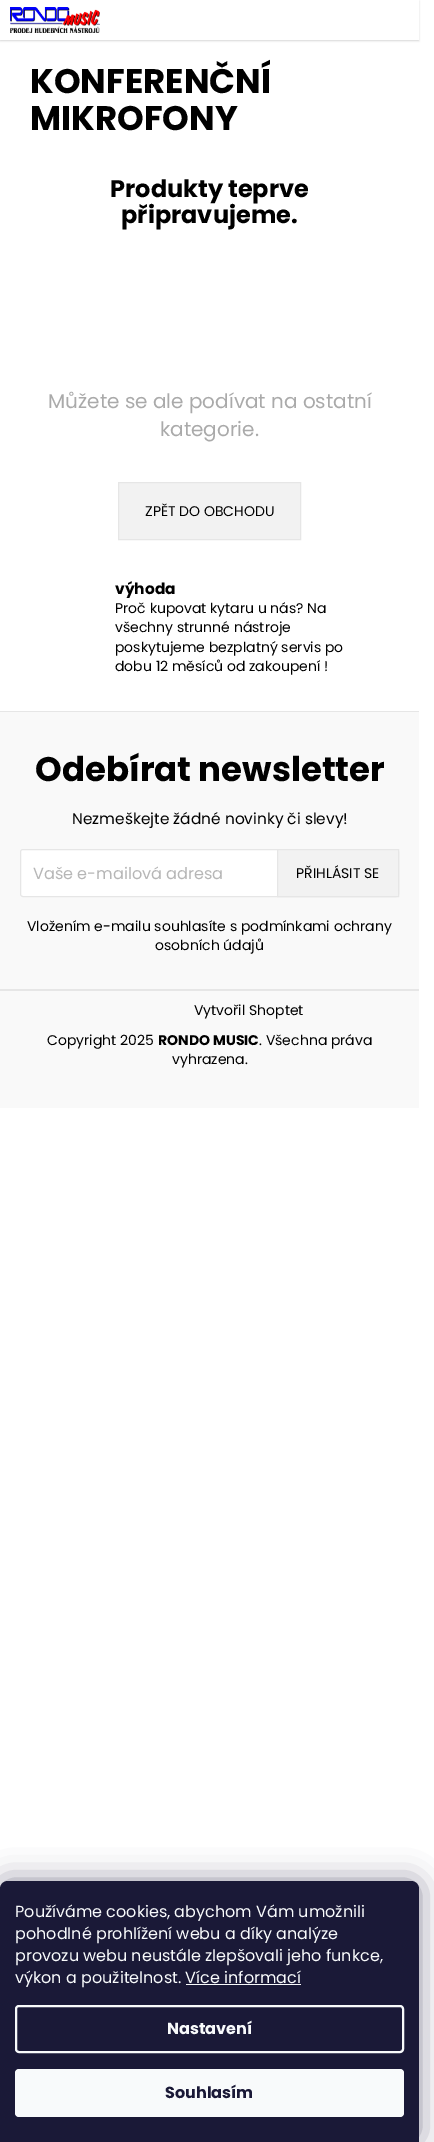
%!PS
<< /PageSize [434 2142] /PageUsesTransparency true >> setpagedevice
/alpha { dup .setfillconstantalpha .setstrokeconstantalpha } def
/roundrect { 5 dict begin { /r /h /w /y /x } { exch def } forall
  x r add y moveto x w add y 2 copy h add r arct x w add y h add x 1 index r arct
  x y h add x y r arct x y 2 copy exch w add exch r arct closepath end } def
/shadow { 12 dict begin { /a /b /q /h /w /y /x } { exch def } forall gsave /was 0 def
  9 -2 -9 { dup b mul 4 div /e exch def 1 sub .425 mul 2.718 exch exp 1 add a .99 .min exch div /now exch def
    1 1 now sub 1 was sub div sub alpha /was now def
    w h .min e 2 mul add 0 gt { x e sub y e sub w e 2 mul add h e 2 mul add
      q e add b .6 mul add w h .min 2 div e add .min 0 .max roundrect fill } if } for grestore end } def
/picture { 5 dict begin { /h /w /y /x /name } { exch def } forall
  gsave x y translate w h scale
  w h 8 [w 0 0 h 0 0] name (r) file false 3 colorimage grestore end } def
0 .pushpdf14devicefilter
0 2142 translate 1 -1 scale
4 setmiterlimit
1 setgray
0 0 434 2142 rectfill
gsave
newpath 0 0 moveto 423 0 lineto 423 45 lineto 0 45 lineto closepath 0 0 moveto 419 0 lineto 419 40 lineto 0 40 lineto closepath eoclip newpath
0 setgray
0 1 419 40 0 1 0.16 shadow
grestore
(img1.rgb) 10 7 90 26 picture
/Poppins-Bold [34 0 0 -34 0 0] selectfont
0 setgray
30 93 moveto (KONFERENČNÍ) show
30 130 moveto (MIKROFONY) show
/Poppins-Bold [24 0 0 -24 0 0] selectfont
110 197 moveto (Produkty teprve) show
121 223 moveto (připravujeme.) show
/Poppins-Regular [20 0 0 -20 0 0] selectfont
0.667 setgray
48 408 moveto (Můžete se ale podívat na ostatní) show
160 436 moveto (kategorie.) show
0.949 setgray
newpath 118.5 482.5 moveto 300.5 482.5 lineto 300.5 539.5 lineto 118.5 539.5 lineto closepath gsave fill grestore
0.902 setgray
stroke
/Poppins-Regular [14 0 0 -14 0 0] selectfont
0 setgray
145 516 moveto (ZPĚT DO OBCHODU) show
/Poppins-Bold [15.4 0 0 -15.4 0 0] selectfont
115 594 moveto (výhoda) show
/Poppins-Regular [14 0 0 -14 0 0] selectfont
115 613 moveto (Proč kupovat kytaru u nás? Na) show
115 632 moveto (všechny strunné nástroje) show
115 652 moveto (poskytujeme bezplatný servis po) show
115 671 moveto (dobu 12 měsíců od zakoupení !) show
0.976 setgray
0 712 419 396 rectfill
0.902 setgray
0 711 419 1 rectfill
0 989 419 2 rectfill
/Poppins-Bold [34 0 0 -34 0 0] selectfont
0 setgray
35 781 moveto (Odebírat newsletter) show
/Poppins-Regular [15.4 0 0 -15.4 0 0] selectfont
72 824 moveto (Nezmeškejte žádné novinky či slevy!) show
1 setgray
20.5 849.5 378 47 2.5 roundrect gsave fill grestore
0.902 setgray
stroke
/Poppins-Regular [16.1 0 0 -16.1 0 0] selectfont
0.714 setgray
33 879 moveto (Vaše e-mailová adresa) show
0.949 setgray
newpath 277.5 849.5 moveto 398.5 849.5 lineto 398.5 896.5 lineto 277.5 896.5 lineto closepath gsave fill grestore
0.902 setgray
stroke
/Poppins-Regular [14 0 0 -14 0 0] selectfont
0 setgray
296 878 moveto (PŘIHLÁSIT SE) show
27 931 moveto (Vložením e-mailu souhlasíte s podmínkami ochrany) show
155 950 moveto (osobních údajů) show
194 1015 moveto (Vytvořil Shoptet) show
47 1045 moveto (Copyright 2025) show
/Poppins-Bold [14 0 0 -14 0 0] selectfont
158 1045 moveto (RONDO MUSIC) show
/Poppins-Regular [14 0 0 -14 0 0] selectfont
259 1045 moveto (. Všechna práva) show
172 1064 moveto (vyhrazena.) show
0.106 0.098 0.224 setrgbcolor
0 1881 419 261 8 15 0.5 shadow
0.102 0.098 0.216 setrgbcolor
newpath 8 1881 moveto 411 1881 lineto 415.5 1881 419 1884.5 419 1889 curveto 419 2142 lineto 0 2142 lineto 0 1889 lineto 0 1884.5 3.5 1881 8 1881 curveto closepath fill
/Poppins-Regular [16 0 0 -16 0 0] selectfont
0.973 0.98 0.984 setrgbcolor
15 1917 moveto (Používáme cookies, abychom Vám umožnili) show
15 1939 moveto (pohodlné prohlížení webu a díky analýze) show
15 1961 moveto (provozu webu neustále zlepšovali jeho funkce,) show
15 1983 moveto (výkon a použitelnost. Více informací) show
186 1984 115 1 rectfill
2 setlinewidth
16 2006 387 46 3 roundrect stroke
/Poppins-Bold [16 0 0 -16 0 0] selectfont
167 2034 moveto (Nastavení) show
15 2069 389 48 4 roundrect fill
0.102 0.098 0.216 setrgbcolor
165 2098 moveto (Souhlasím) show
.poppdf14devicefilter showpage
